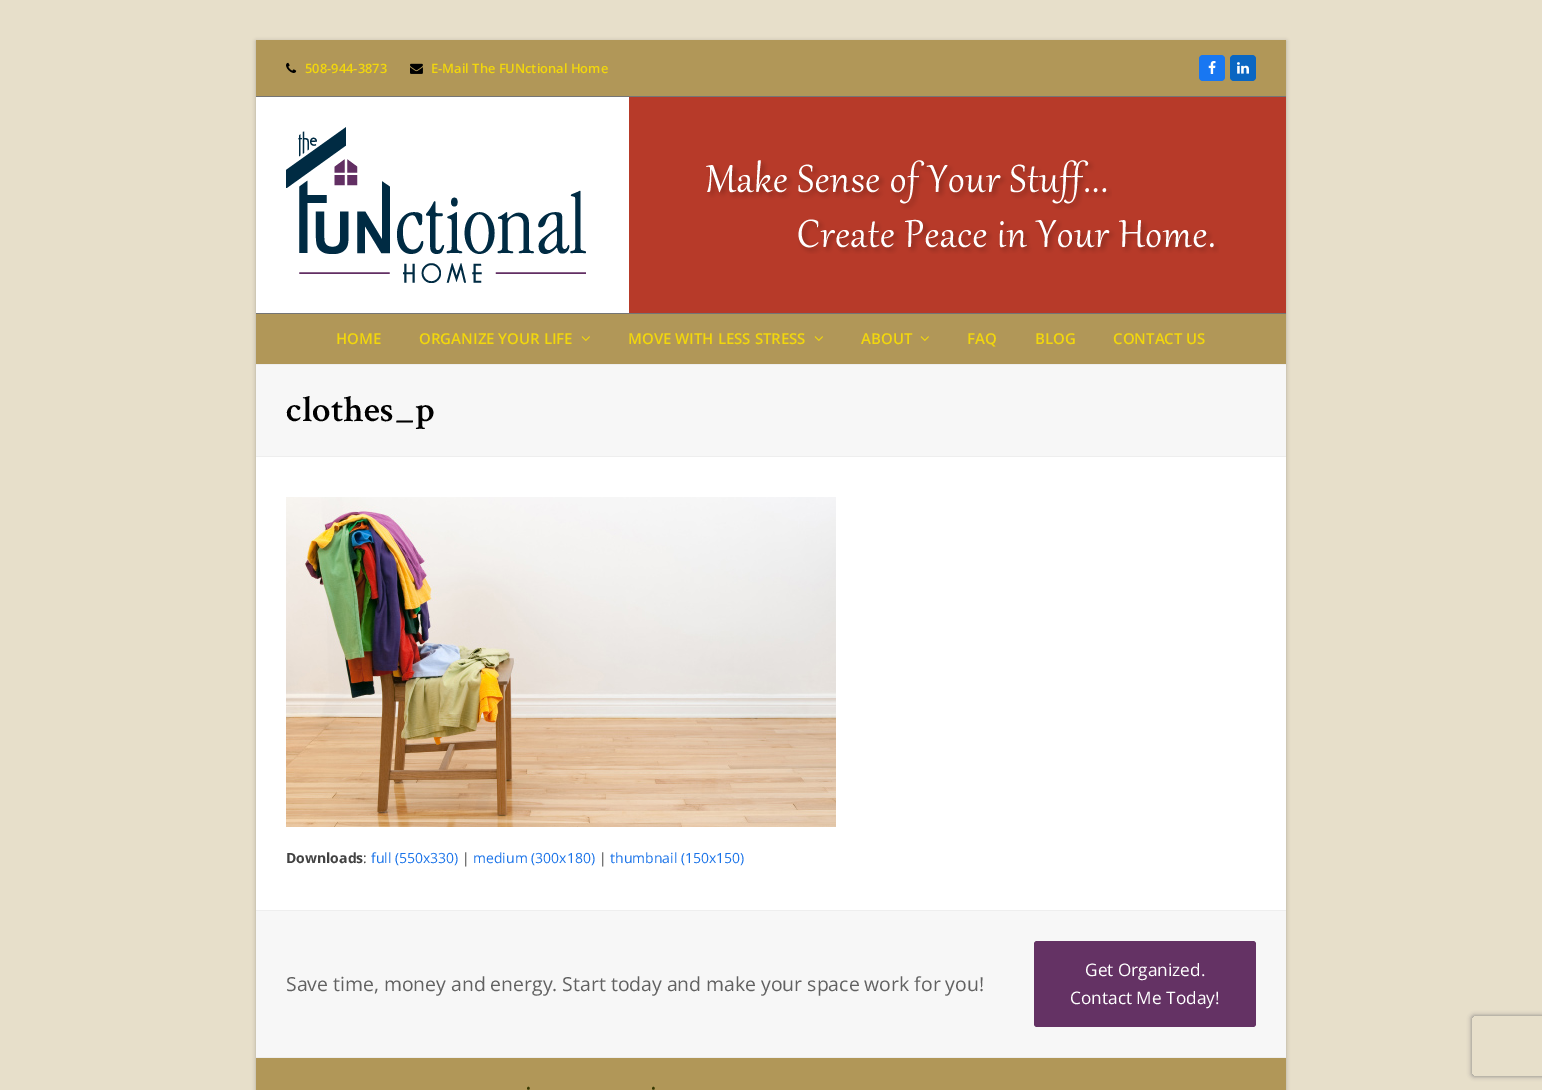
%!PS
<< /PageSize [1542 1090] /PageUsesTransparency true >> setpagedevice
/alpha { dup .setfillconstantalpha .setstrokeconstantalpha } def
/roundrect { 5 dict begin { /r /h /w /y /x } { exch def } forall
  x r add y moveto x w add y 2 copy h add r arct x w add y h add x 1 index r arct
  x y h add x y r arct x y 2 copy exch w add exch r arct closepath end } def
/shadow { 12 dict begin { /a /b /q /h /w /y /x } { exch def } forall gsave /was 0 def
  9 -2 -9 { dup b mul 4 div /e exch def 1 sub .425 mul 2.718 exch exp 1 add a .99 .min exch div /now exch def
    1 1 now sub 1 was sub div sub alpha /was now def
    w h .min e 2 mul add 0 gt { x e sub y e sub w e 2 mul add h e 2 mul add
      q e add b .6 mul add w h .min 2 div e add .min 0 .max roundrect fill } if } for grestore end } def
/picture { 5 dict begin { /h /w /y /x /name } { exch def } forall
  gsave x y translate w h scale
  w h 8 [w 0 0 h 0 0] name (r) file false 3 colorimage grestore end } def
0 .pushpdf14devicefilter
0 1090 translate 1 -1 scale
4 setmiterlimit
0.906 0.875 0.792 setrgbcolor
0 0 1542 1090 rectfill
0 setgray
256 41 1030 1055 0 2 0.25 shadow
1 setgray
256 97 1030 813 rectfill
0.694 0.592 0.345 setrgbcolor
256 40 1030 56 rectfill
0.459 setgray
256 96 1030 1 rectfill
(img1.rgb) 286 62 11 11 picture
/OpenSans-SemiBold [12.9 0 0 -12.9 0 0] selectfont
0.949 0.843 0.047 setrgbcolor
305 73 moveto (508-944-3873) show
(img2.rgb) 410 63 13 11 picture
431 73 moveto (E-Mail The FUNctional Home) show
0.094 0.467 0.949 setrgbcolor
1199 55 26 26 4 roundrect fill
(img3.rgb) 1208 61 8 13 picture
0.039 0.4 0.761 setrgbcolor
1230 55 26 26 4 roundrect fill
(img4.rgb) 1237 62 12 12 picture
(img5.rgb) 629 97 657 216 picture
(img6.rgb) 286 127 300 156 picture
0.694 0.592 0.345 setrgbcolor
256 314 1030 50 rectfill
0.459 setgray
256 313 1030 1 rectfill
/OpenSans-SemiBold [15 0 0 -15 0 0] selectfont
0.949 0.843 0.047 setrgbcolor
336 344 moveto (HOME) show
419 344 moveto (ORGANIZE YOUR LIFE) show
(img7.rgb) 581 336 9 5 picture
628 344 moveto (MOVE WITH LESS STRESS) show
(img7.rgb) 814 336 9 5 picture
861 344 moveto (ABOUT) show
(img7.rgb) 920 336 9 5 picture
967 344 moveto (FAQ) show
1035 344 moveto (BLOG) show
1113 344 moveto (CONTACT US) show
0.969 setgray
256 365 1030 91 rectfill
0.933 setgray
256 364 1030 1 rectfill
256 456 1030 1 rectfill
/CrimsonText-SemiBold [37 0 0 -37 0 0] selectfont
0 setgray
286 421 moveto (clothes_p) show
(img8.rgb) 286 497 550 330 picture
/OpenSans-Bold [14 0 0 -14 0 0] selectfont
0.259 setgray
286 863 moveto (Downloads) show
/OpenSans-Regular [14 0 0 -14 0 0] selectfont
363 863 moveto (:) show
0.102 0.451 0.91 setrgbcolor
371 863 moveto (full \(550x330\)) show
0.259 setgray
462 863 moveto (|) show
0.102 0.451 0.91 setrgbcolor
473 863 moveto (medium \(300x180\)) show
0.259 setgray
599 863 moveto (|) show
0.102 0.451 0.91 setrgbcolor
610 863 moveto (thumbnail \(150x150\)) show
0.969 setgray
256 911 1030 146 rectfill
0.933 setgray
256 910 1030 1 rectfill
256 1057 1030 1 rectfill
/OpenSans-Regular [19.4 0 0 -19.4 0 0] selectfont
0.38 setgray
286 991 moveto (Save time, money and energy. Start today and make your space work for you!) show
0.392 0.196 0.392 setrgbcolor
1034 941 222 86 3 roundrect fill
/OpenSans-Regular [17.25 0 0 -17.25 0 0] selectfont
1 setgray
1085 976 moveto (Get Organized.) show
1070 1004 moveto (Contact Me Today!) show
0.694 0.592 0.345 setrgbcolor
256 1058 1030 32 rectfill
/OpenSans-Regular [12.9 0 0 -12.9 0 0] selectfont
0.208 0.22 0 setrgbcolor
526 1093 moveto (•) show
651 1093 moveto (•) show
gsave
newpath 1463 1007 moveto 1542 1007 lineto 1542 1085 lineto 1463 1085 lineto closepath 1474 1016 moveto 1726 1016 lineto 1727 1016 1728 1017 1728 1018 curveto 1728 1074 lineto 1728 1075 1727 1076 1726 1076 curveto 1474 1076 lineto 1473 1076 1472 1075 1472 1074 curveto 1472 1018 lineto 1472 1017 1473 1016 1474 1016 curveto closepath eoclip newpath
0.502 setgray
1472 1016 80 60 2 2.5 1 shadow
grestore
.poppdf14devicefilter showpage
